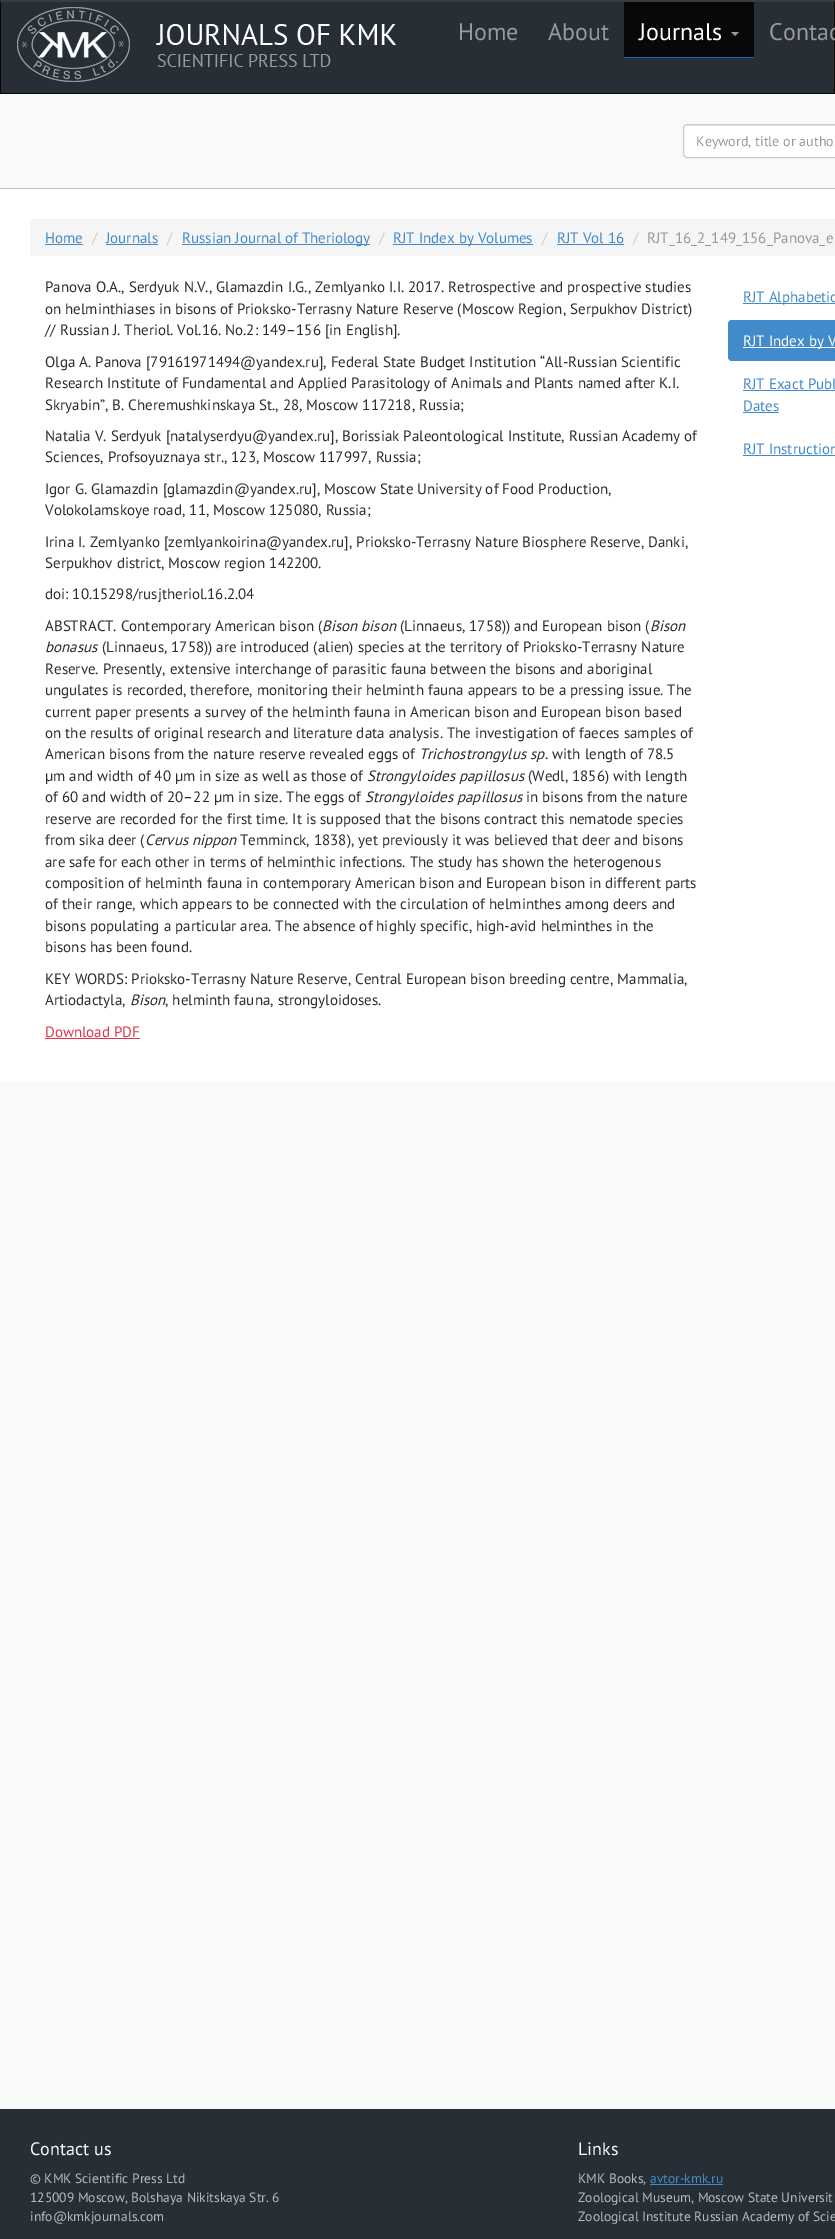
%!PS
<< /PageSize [835 2239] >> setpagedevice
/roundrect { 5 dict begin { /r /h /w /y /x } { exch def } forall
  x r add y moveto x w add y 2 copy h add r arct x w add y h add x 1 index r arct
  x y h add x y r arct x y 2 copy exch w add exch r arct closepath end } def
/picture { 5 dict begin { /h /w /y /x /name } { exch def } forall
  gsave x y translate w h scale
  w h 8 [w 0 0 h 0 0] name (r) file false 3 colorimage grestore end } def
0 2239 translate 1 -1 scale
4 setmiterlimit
0.969 0.98 0.973 setrgbcolor
0 0 835 2239 rectfill
0.153 0.18 0.208 setrgbcolor
1 2 833 91 rectfill
0.2 0.243 0.275 setrgbcolor
newpath 0 0 moveto 835 0 lineto 834 2 lineto 1 2 lineto closepath fill
0.031 setgray
newpath 835 0 moveto 835 94 lineto 834 93 lineto 834 2 lineto closepath fill
0 93 835 1 rectfill
newpath 0 94 moveto 0 0 lineto 1 2 lineto 1 93 lineto closepath fill
(img1.rgb) 17 7 379 75 picture
/PTSans-Regular [24 0 0 -24 0 0] selectfont
0.6 setgray
458 40 moveto (Home) show
548 40 moveto (About) show
0.031 setgray
624 2 130 55 rectfill
0.012 0.427 0.725 setrgbcolor
624 57 130 1 rectfill
1 setgray
639 40 moveto (Journals) show
0.6 setgray
newpath 731 32 moveto 739 32 lineto 735 36 lineto closepath fill
769 40 moveto (Contac) show
1 setgray
683 124 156 34 4 roundrect fill
0.925 setgray
newpath 687 126 moveto 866 126 lineto 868 127 lineto 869 129 lineto 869 127 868 125 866 125 curveto 686 125 lineto 684 126 684 127 684 129 curveto 684 127 685 126 687 126 curveto closepath fill
0.8 setgray
683.5 124.5 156 33 3.5 roundrect stroke
/PTSans-Regular [14 0 0 -14 0 0] selectfont
0.6 setgray
696 146 moveto (Keyword, title or autho) show
1 setgray
0 189 835 893 rectfill
0.745 0.765 0.745 setrgbcolor
0 188 835 1 rectfill
0.961 setgray
30 219 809 37 4 roundrect fill
/PTSans-Regular [15 0 0 -15 0 0] selectfont
0.259 0.545 0.792 setrgbcolor
45 243 moveto (Home) show
45 244 38 1 rectfill
0.8 setgray
92 243 moveto (/) show
0.259 0.545 0.792 setrgbcolor
106 243 moveto (Journals) show
106 244 52 1 rectfill
0.8 setgray
167 243 moveto (/) show
0.259 0.545 0.792 setrgbcolor
182 244 188 1 rectfill
182 243 moveto (Russian Journal of Theriology) show
0.8 setgray
379 243 moveto (/) show
0.259 0.545 0.792 setrgbcolor
393 244 140 1 rectfill
393 243 moveto (RJT Index by Volumes) show
0.8 setgray
542 243 moveto (/) show
0.259 0.545 0.792 setrgbcolor
557 243 moveto (RJT Vol 16) show
557 244 67 1 rectfill
0.8 setgray
633 243 moveto (/) show
0.6 setgray
647 243 moveto (RJT_16_2_149_156_Panova_e) show
0.153 0.18 0.208 setrgbcolor
45 292 moveto (Panova O.A., Serdyuk N.V., Glamazdin I.G., Zemlyanko I.I. 2017. Retrospective and prospective studies) show
45 314 moveto (on helminthiases in bisons of Prioksko-Terrasny Nature Reserve \(Moscow Region, Serpukhov District\)) show
45 335 moveto (// Russian J. Theriol. Vol.16. No.2: 149–156 [in English].) show
45 367 moveto (Olga A. Panova [79161971494@yandex.ru], Federal State Budget Institution “All-Russian Scientific) show
45 388 moveto (Research Institute of Fundamental and Applied Parasitology of Animals and Plants named after K.I.) show
45 410 moveto (Skryabin”, B. Cheremushkinskaya St., 28, Moscow 117218, Russia;) show
45 441 moveto (Natalia V. Serdyuk [natalyserdyu@yandex.ru], Borissiak Paleontological Institute, Russian Academy of) show
45 462 moveto (Sciences, Profsoyuznaya str., 123, Moscow 117997, Russia;) show
45 494 moveto (Igor G. Glamazdin [glamazdin@yandex.ru], Moscow State University of Food Production,) show
45 515 moveto (Volokolamskoye road, 11, Moscow 125080, Russia;) show
45 547 moveto (Irina I. Zemlyanko [zemlyankoirina@yandex.ru], Prioksko-Terrasny Nature Biosphere Reserve, Danki,) show
45 568 moveto (Serpukhov district, Moscow region 142200.) show
45 599 moveto (doi: 10.15298/rusjtheriol.16.2.04) show
45 631 moveto (ABSTRACT. Contemporary American bison \() show
/PTSans-Italic [15 0 0 -15 0 0] selectfont
322 631 moveto (Bison bison) show
/PTSans-Regular [15 0 0 -15 0 0] selectfont
400 631 moveto (\(Linnaeus, 1758\)\) and European bison \() show
/PTSans-Italic [15 0 0 -15 0 0] selectfont
650 631 moveto (Bison) show
45 652 moveto (bonasus) show
/PTSans-Regular [15 0 0 -15 0 0] selectfont
102 652 moveto (\(Linnaeus, 1758\)\) are introduced \(alien\) species at the territory of Prioksko-Terrasny Nature) show
45 674 moveto (Reserve. Presently, extensive interchange of parasitic fauna between the bisons and aboriginal) show
45 695 moveto (ungulates is recorded, therefore, monitoring their helminth fauna appears to be a pressing issue. The) show
45 717 moveto (current paper presents a survey of the helminth fauna in American bison and European bison based) show
45 738 moveto (on the results of original research and literature data analysis. The investigation of faeces samples of) show
45 759 moveto (American bisons from the nature reserve revealed eggs of) show
/PTSans-Italic [15 0 0 -15 0 0] selectfont
419 759 moveto (Trichostrongylus sp) show
/PTSans-Regular [15 0 0 -15 0 0] selectfont
545 759 moveto (. with length of 78.5) show
45 781 moveto (μm and width of 40 μm in size as well as those of) show
/PTSans-Italic [15 0 0 -15 0 0] selectfont
367 781 moveto (Strongyloides papillosus) show
/PTSans-Regular [15 0 0 -15 0 0] selectfont
528 781 moveto (\(Wedl, 1856\) with length) show
45 802 moveto (of 60 and width of 20–22 μm in size. The eggs of) show
/PTSans-Italic [15 0 0 -15 0 0] selectfont
365 802 moveto (Strongyloides papillosus) show
/PTSans-Regular [15 0 0 -15 0 0] selectfont
526 802 moveto (in bisons from the nature) show
45 824 moveto (reserve are recorded for the first time. It is supposed that the bisons contract this nematode species) show
45 845 moveto (from sika deer \() show
/PTSans-Italic [15 0 0 -15 0 0] selectfont
145 845 moveto (Cervus nippon) show
/PTSans-Regular [15 0 0 -15 0 0] selectfont
240 845 moveto (Temminck, 1838\), yet previously it was believed that deer and bisons) show
45 867 moveto (are safe for each other in terms of helminthic infections. The study has shown the heterogenous) show
45 888 moveto (composition of helminth fauna in contemporary American bison and European bison in different parts) show
45 909 moveto (of their range, which appears to be connected with the circulation of helminthes among deers and) show
45 931 moveto (bisons populating a particular area. The absence of highly specific, high-avid helminthes in the) show
45 952 moveto (bisons has been found.) show
45 984 moveto (KEY WORDS: Prioksko-Terrasny Nature Reserve, Central European bison breeding centre, Mammalia,) show
45 1005 moveto (Artiodactyla,) show
/PTSans-Italic [15 0 0 -15 0 0] selectfont
130 1005 moveto (Bison) show
/PTSans-Regular [15 0 0 -15 0 0] selectfont
165 1005 moveto (, helminth fauna, strongyloidoses.) show
0.878 0.208 0.298 setrgbcolor
45 1037 moveto (Download PDF) show
45 1038 95 1 rectfill
0.259 0.545 0.792 setrgbcolor
743 303 92 1 rectfill
743 302 moveto (RJT Alphabetic) show
728 320 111 41 4 roundrect fill
1 setgray
743 347 92 1 rectfill
743 346 moveto (RJT Index by V) show
0.259 0.545 0.792 setrgbcolor
743 389 moveto (RJT Exact Publ) show
743 390 92 1 rectfill
743 411 moveto (Dates) show
743 412 36 1 rectfill
743 454 moveto (RJT Instruction) show
743 455 92 1 rectfill
0.153 0.18 0.208 setrgbcolor
0 2109 835 130 rectfill
/PTSans-Regular [18 0 0 -18 0 0] selectfont
0.969 0.98 0.973 setrgbcolor
30 2155 moveto (Contact us) show
/PTSans-Regular [13.5 0 0 -13.5 0 0] selectfont
0.706 0.737 0.769 setrgbcolor
30 2183 moveto (© KMK Scientific Press Ltd) show
30 2202 moveto (125009 Moscow, Bolshaya Nikitskaya Str. 6) show
30 2221 moveto (info@kmkjournals.com) show
/PTSans-Regular [18 0 0 -18 0 0] selectfont
0.969 0.98 0.973 setrgbcolor
578 2155 moveto (Links) show
/PTSans-Regular [13.5 0 0 -13.5 0 0] selectfont
0.706 0.737 0.769 setrgbcolor
578 2183 moveto (KMK Books,) show
0.259 0.545 0.792 setrgbcolor
650 2183 moveto (avtor-kmk.ru) show
650 2184 73 1 rectfill
0.706 0.737 0.769 setrgbcolor
578 2202 moveto (Zoological Museum, Moscow State Universit) show
578 2221 moveto (Zoological Institute Russian Academy of Scie) show
showpage
